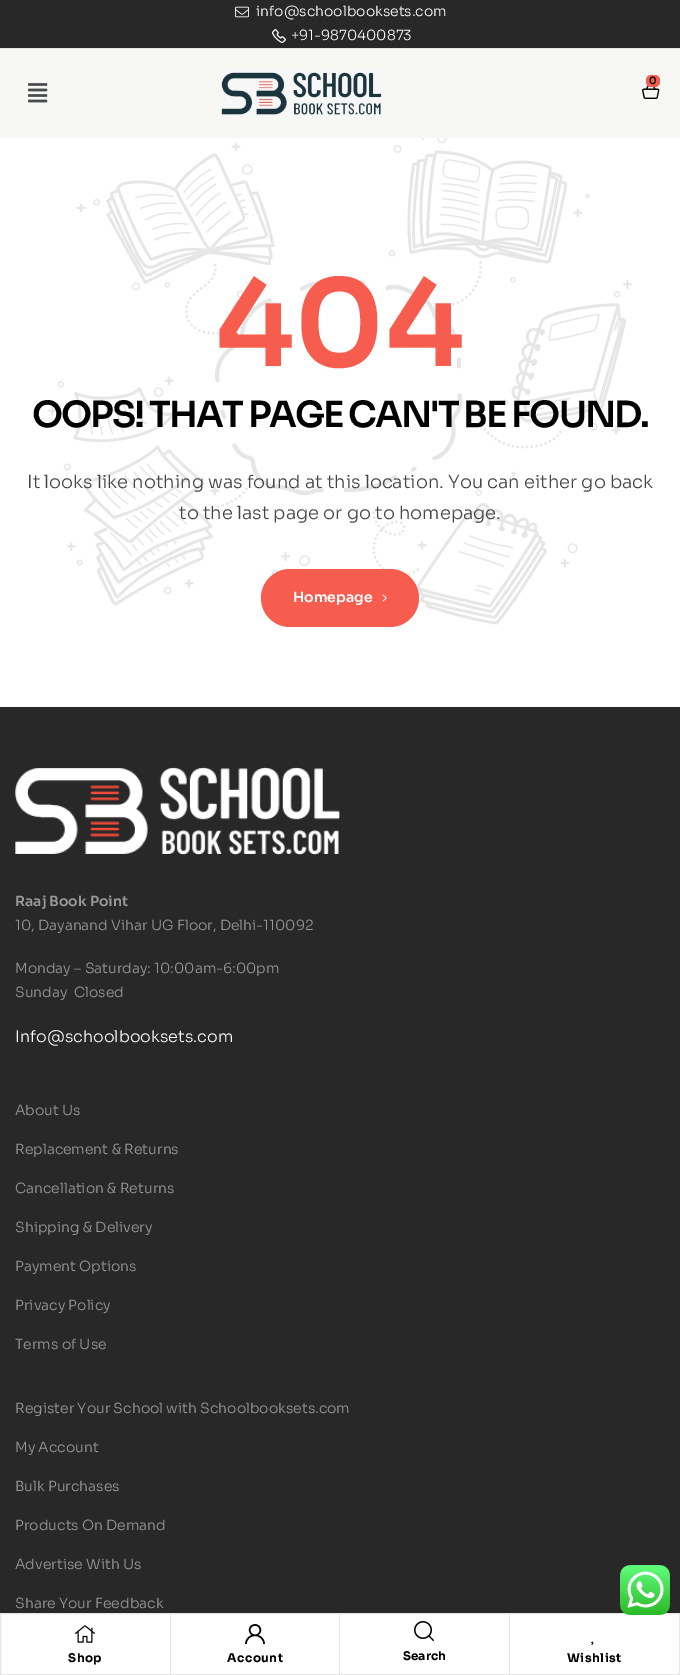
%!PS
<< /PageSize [680 1675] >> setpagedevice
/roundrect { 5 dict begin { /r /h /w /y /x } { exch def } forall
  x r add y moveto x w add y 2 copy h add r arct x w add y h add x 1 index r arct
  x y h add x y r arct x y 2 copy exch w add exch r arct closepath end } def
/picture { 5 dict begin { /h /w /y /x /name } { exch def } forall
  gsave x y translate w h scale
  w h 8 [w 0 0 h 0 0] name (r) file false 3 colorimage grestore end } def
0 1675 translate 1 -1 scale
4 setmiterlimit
1 setgray
0 0 680 1675 rectfill
0.157 setgray
0 0 680 48 rectfill
0.902 setgray
0 48 680 1 rectfill
(img1.rgb) 235 6 14 12 picture
/Sora-Light [14 0 0 -14 0 0] selectfont
1 setgray
256 16 moveto (info@schoolbooksets.com) show
(img2.rgb) 272 29 14 14 picture
291 40 moveto (+91-9870400873) show
0.969 0.969 0.953 setrgbcolor
0 49 680 89 rectfill
(img3.rgb) 218 69 169 47 picture
(img4.rgb) 642 85 18 14 picture
0.965 0.365 0.306 setrgbcolor
646 75 14 12 5 roundrect fill
/Sora-SemiBold [10 0 0 -10 0 0] selectfont
0 setgray
649 84 moveto (0) show
(img5.rgb) 28 83 20 20 picture
(img6.rgb) 48 138 584 487 picture
/Sora-SemiBold [120 0 0 -120 0 0] selectfont
0.965 0.365 0.306 setrgbcolor
215 366 moveto (404) show
/Sora-SemiBold [36 0 0 -36 0 0] selectfont
0 setgray
32 427 moveto -2 0 (OOPS! THAT PAGE CAN'T BE FOUND.) ashow
/Sora-Light [18 0 0 -18 0 0] selectfont
0.267 setgray
27 488 moveto (It looks like nothing was found at this location. You can either go back) show
179 519 moveto (to the last page or go to homepage.) show
0.965 0.365 0.306 setrgbcolor
261 569 158 58 29 roundrect fill
/Sora-SemiBold [14 0 0 -14 0 0] selectfont
1 setgray
293 602 moveto (Homepage) show
(img7.rgb) 382 594 5 8 picture
0.157 setgray
0 707 680 906 rectfill
(img8.rgb) 15 767 325 88 picture
0.6 setgray
15 906 moveto (Raaj Book Point) show
/Sora-Light [14 0 0 -14 0 0] selectfont
15 930 moveto (10, Dayanand Vihar UG Floor, Delhi-110092) show
15 973 moveto (Monday – Saturday: 10:00am-6:00pm) show
15 997 moveto (Sunday  Closed) show
/Sora-Light [16 0 0 -16 0 0] selectfont
1 setgray
15 1042 moveto (Info@schoolbooksets.com) show
/Sora-Light [14 0 0 -14 0 0] selectfont
0.6 setgray
15 1115 moveto (About Us) show
15 1154 moveto (Replacement & Returns) show
15 1193 moveto (Cancellation & Returns) show
15 1232 moveto (Shipping & Delivery) show
15 1271 moveto (Payment Options) show
15 1310 moveto (Privacy Policy) show
15 1349 moveto (Terms of Use) show
15 1413 moveto (Register Your School with Schoolbooksets.com) show
15 1452 moveto (My Account) show
15 1491 moveto (Bulk Purchases) show
15 1530 moveto (Products On Demand) show
15 1569 moveto (Advertise With Us) show
15 1608 moveto (Share Your Feedback) show
0.902 setgray
0.5 1613.5 679 61 rectstroke
170 1614 1 60 rectfill
(img9.rgb) 75 1625 20 18 picture
/Sora-Bold [12 0 0 -12 0 0] selectfont
0 setgray
68 1662 moveto 0.5 0 (Shop) ashow
0.902 setgray
339 1614 1 60 rectfill
(img10.rgb) 245 1624 20 20 picture
0 setgray
227 1662 moveto 0.5 0 (Account) ashow
0.902 setgray
509 1614 1 60 rectfill
(img11.rgb) 414 1621 20 20 picture
0 setgray
403 1660 moveto (Search) show
(img12.rgb) 591 1641 3 5 picture
567 1662 moveto 0.5 0 (Wishlist) ashow
(img13.rgb) 620 1565 50 50 picture
showpage
